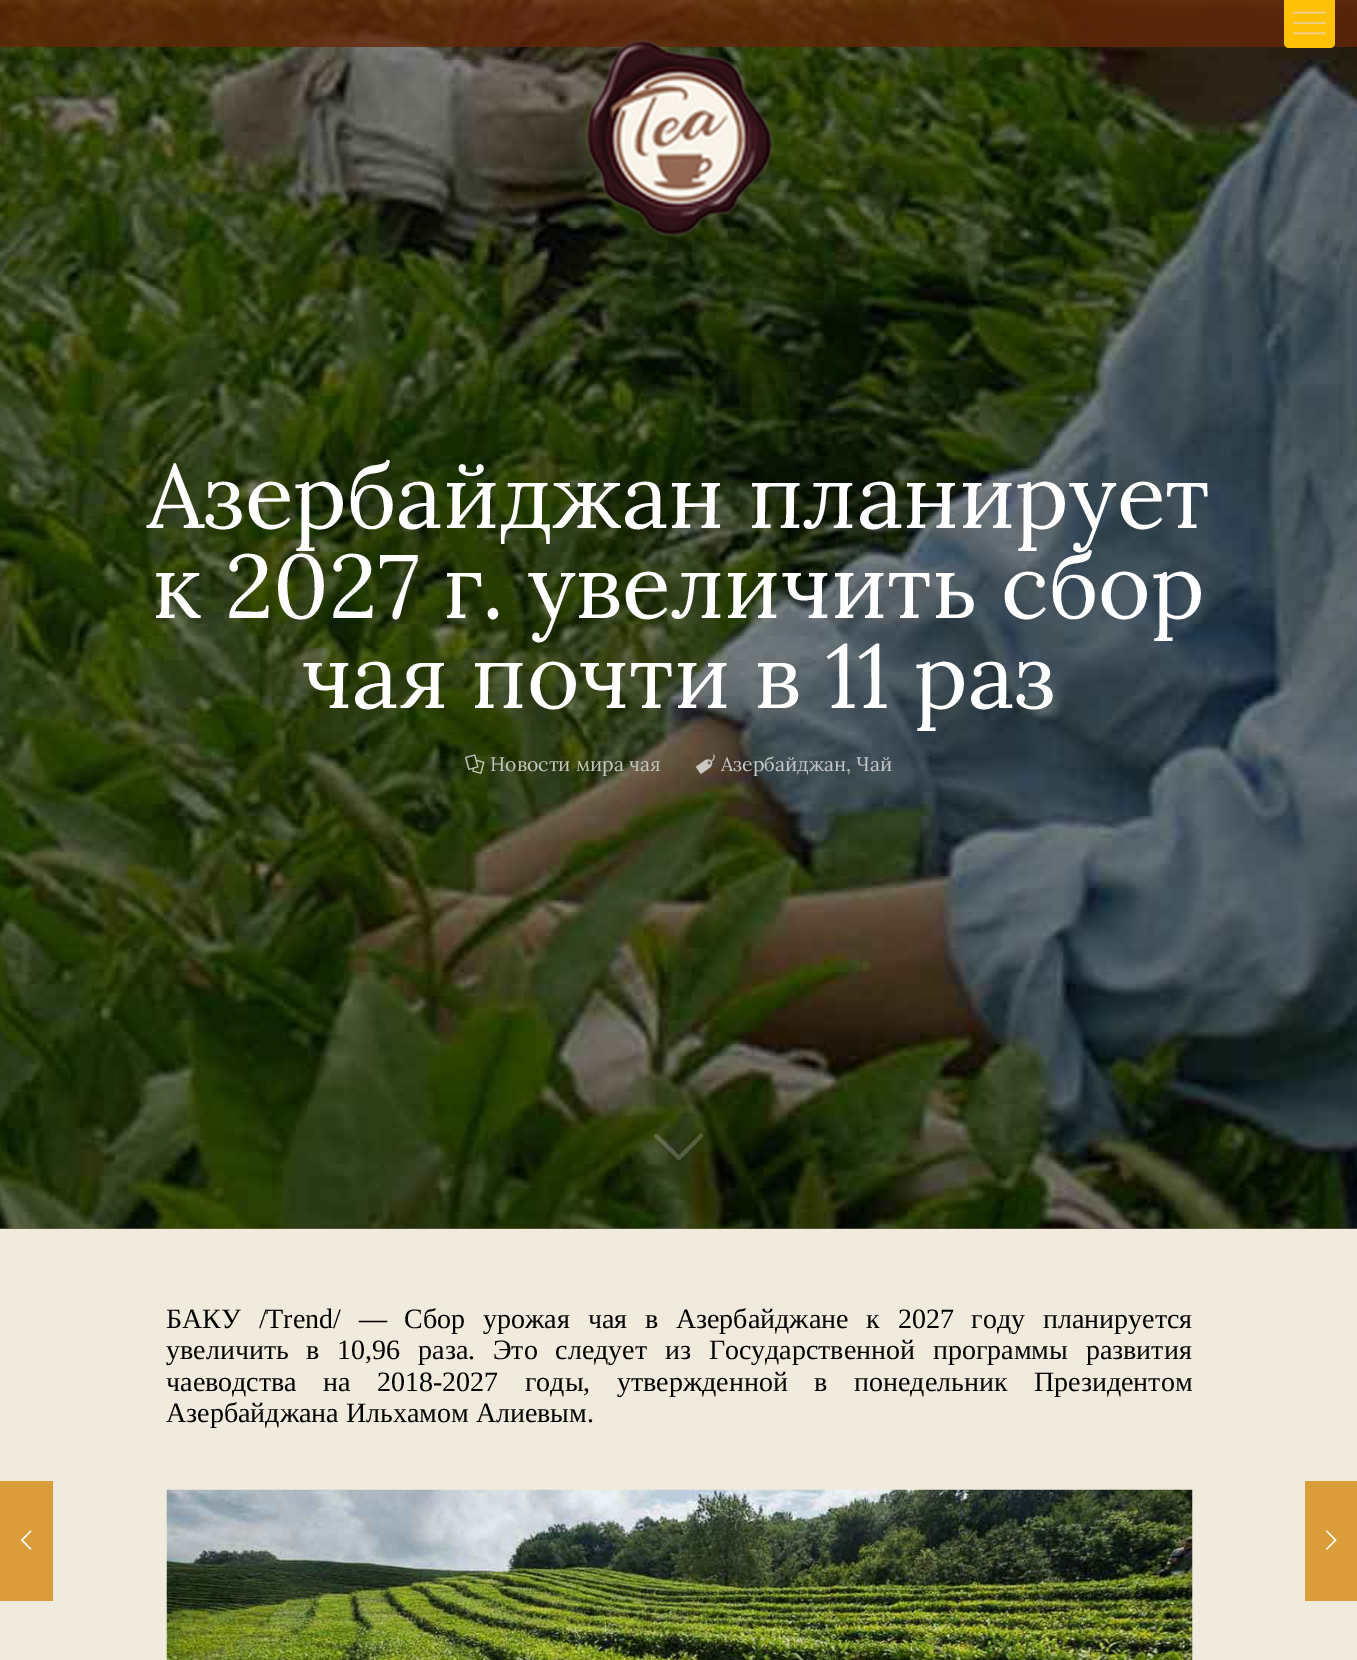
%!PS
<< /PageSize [1357 1660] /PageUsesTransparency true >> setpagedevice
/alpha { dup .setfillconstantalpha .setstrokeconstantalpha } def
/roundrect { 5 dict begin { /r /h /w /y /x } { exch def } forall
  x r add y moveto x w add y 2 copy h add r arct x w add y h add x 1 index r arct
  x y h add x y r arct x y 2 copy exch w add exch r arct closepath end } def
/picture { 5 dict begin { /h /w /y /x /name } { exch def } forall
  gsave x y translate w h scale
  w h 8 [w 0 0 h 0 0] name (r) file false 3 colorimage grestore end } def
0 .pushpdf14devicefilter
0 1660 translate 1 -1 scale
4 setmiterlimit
0.941 0.922 0.863 setrgbcolor
0 0 1357 1660 rectfill
0.498 0.4 0.341 setrgbcolor
0 1228 1357 1 rectfill
(img3.rgb) 0 0 1357 1229 picture
0.8 alpha
0.388 0.149 0.027 setrgbcolor
0 0 1357 47 rectfill
1 alpha
1 0.757 0.027 setrgbcolor
1284 -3 51 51 5 roundrect fill
(img1.rgb) 1293 11 33 24 picture
(img2.rgb) 585 39 189 198 picture
/Lora-Regular [90 0 0 -90 0 0] selectfont
1 setgray
147 528 moveto (Азербайджан планирует) show
153 618 moveto (к 2027 г. увеличить сбор) show
302 708 moveto (чая почти в 11 раз) show
(img4.rgb) 465 754 20 20 picture
/Lora-Regular [19.5 0 0 -19.5 0 0] selectfont
0.769 0.776 0.737 setrgbcolor
490 771 moveto (Новости мира чая) show
(img5.rgb) 696 754 19 20 picture
0.773 0.784 0.784 setrgbcolor
721 771 moveto (Азербайджан) show
846 771 moveto (,) show
856 771 moveto (Чай) show
0.2 alpha
1 setgray
newpath 658 1135 moveto 679 1155 lineto 700 1134 lineto 701 1133 703 1134 703 1136 curveto 703 1137 682 1158 680 1160 curveto 678 1160 lineto 659 1141 lineto 658 1141 651 1135 656 1134 curveto closepath fill
/LiberationSerif-Regular [28 0 0 -28 0 0] selectfont
1 alpha
0 setgray
166 1328 moveto 10.75 0 32 (БАКУ /Trend/ — Сбор урожая чая в Азербайджане к 2027 году планируется) widthshow
166 1359 moveto 10.75 0 32 (увеличить в 10,96 раза. Это следует из Государственной программы развития) widthshow
166 1391 moveto 19.5 0 32 (чаеводства на 2018-2027 годы, утвержденной в понедельник Президентом) widthshow
166 1422 moveto (Азербайджана Ильхамом Алиевым.) show
(img6.rgb) 166 1489 1027 171 picture
0.859 0.616 0.227 setrgbcolor
0 1481 53 120 rectfill
(img7.rgb) 21 1530 11 20 picture
1305 1481 52 120 rectfill
(img8.rgb) 1326 1530 11 20 picture
.poppdf14devicefilter showpage
